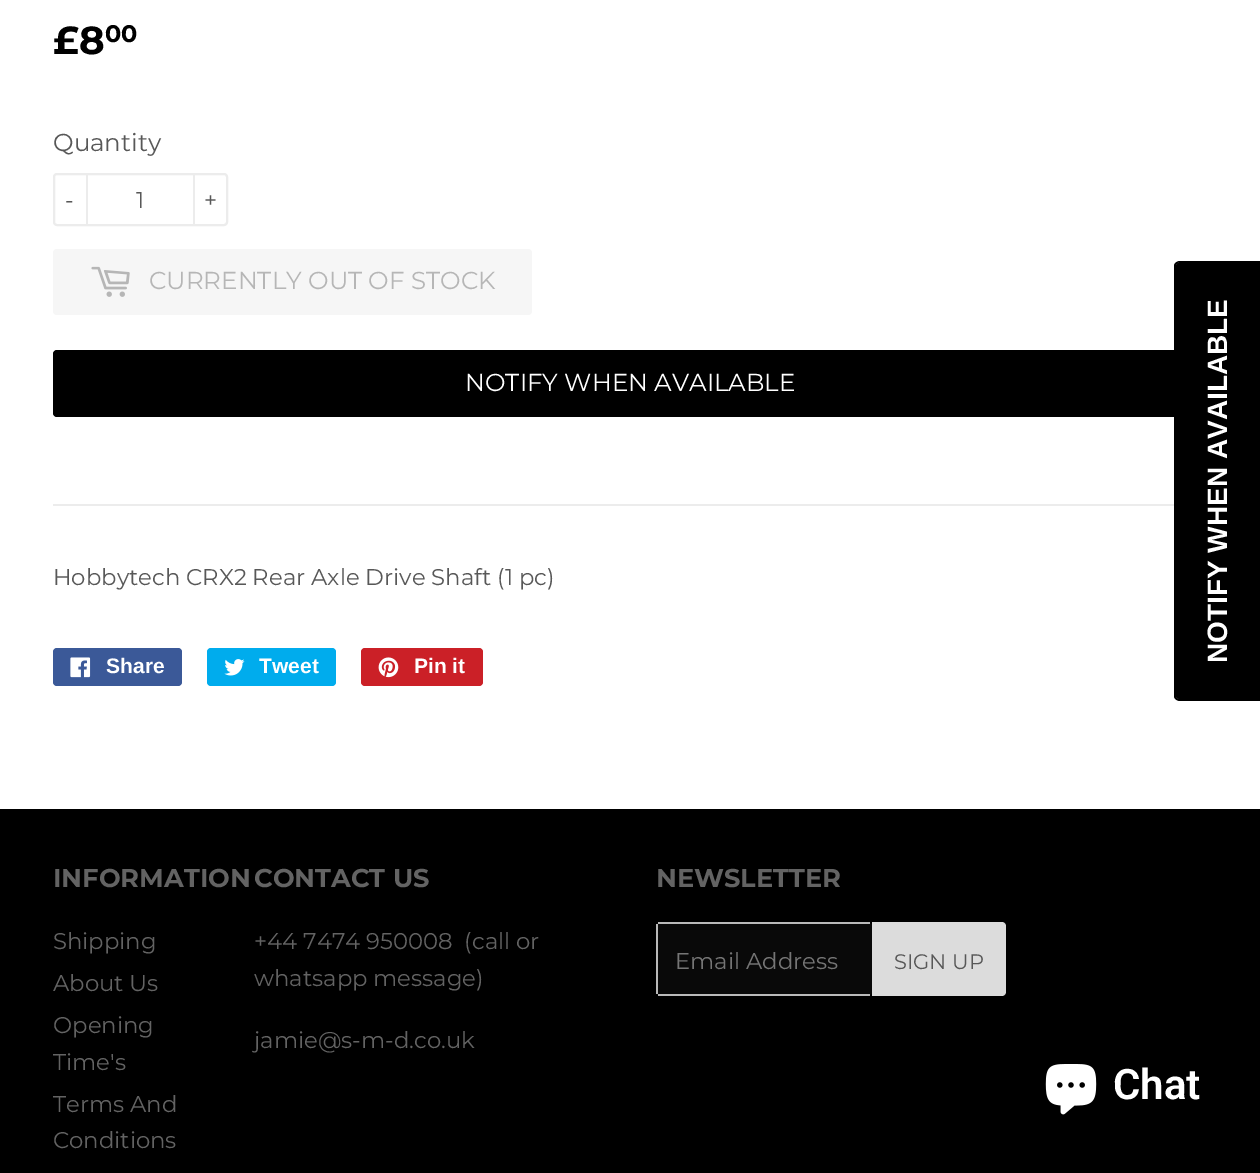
%!PS
<< /PageSize [1260 1173] >> setpagedevice
/roundrect { 5 dict begin { /r /h /w /y /x } { exch def } forall
  x r add y moveto x w add y 2 copy h add r arct x w add y h add x 1 index r arct
  x y h add x y r arct x y 2 copy exch w add exch r arct closepath end } def
/picture { 5 dict begin { /h /w /y /x /name } { exch def } forall
  gsave x y translate w h scale
  w h 8 [w 0 0 h 0 0] name (r) file false 3 colorimage grestore end } def
0 1173 translate 1 -1 scale
4 setmiterlimit
1 setgray
0 0 1260 1173 rectfill
/Montserrat-Bold [39 0 0 -39 0 0] selectfont
0 setgray
53 54 moveto (£8) show
/Montserrat-Bold [24 0 0 -24 0 0] selectfont
105 42 moveto (00) show
/Montserrat-Regular [24.5 0 0 -24.5 0 0] selectfont
0.345 setgray
53 151 moveto (Quantity) show
0.925 setgray
2 setlinewidth
54 174 173 51 3 roundrect stroke
86 173 2 53 rectfill
/Montserrat-Regular [22.75 0 0 -22.75 0 0] selectfont
0.345 setgray
65 208 moveto (-) show
136 208 moveto (1) show
0.925 setgray
193 173 2 53 rectfill
0.345 setgray
204 208 moveto (+) show
0.965 setgray
53 249 479 66 4 roundrect fill
(img1.rgb) 91 266 39 31 picture
/Montserrat-Regular [24.5 0 0 -24.5 0 0] selectfont
0.714 setgray
149 289 moveto (CURRENTLY OUT OF STOCK) show
0 setgray
53 350 1155 67 4 roundrect fill
1 setgray
465 391 moveto (NOTIFY WHEN AVAILABLE) show
0.925 setgray
53 504 1121 2 rectfill
/Montserrat-Regular [22.75 0 0 -22.75 0 0] selectfont
0.345 setgray
53 585 moveto (Hobbytech CRX2 Rear Axle Drive Shaft \(1 pc\)) show
0.231 0.349 0.596 setrgbcolor
53 648 129 38 4 roundrect fill
(img2.rgb) 70 657 21 21 picture
/LiberationSans-Bold [21 0 0 -21 0 0] selectfont
1 setgray
106 673 moveto (Share) show
0 0.675 0.929 setrgbcolor
207 648 129 38 4 roundrect fill
(img3.rgb) 224 659 21 17 picture
1 setgray
259 673 moveto (Tweet) show
0.796 0.125 0.153 setrgbcolor
361 648 122 38 4 roundrect fill
(img4.rgb) 378 657 21 21 picture
1 setgray
414 673 moveto (Pin it) show
0 setgray
newpath 1176 696 moveto 1176 266 lineto 1176 264 1178 262 1180 262 curveto 1260 262 lineto 1260 699 lineto 1180 699 lineto 1178 699 1176 698 1176 696 curveto closepath fill
newpath 1174 696 moveto 1174 266 lineto 1174 263 1177 261 1180 261 curveto 1260 261 lineto 1260 701 lineto 1180 701 lineto 1177 701 1174 699 1174 696 curveto closepath 1176 696 moveto 1176 266 lineto 1176 264 1178 262 1180 262 curveto 1260 262 lineto 1260 699 lineto 1180 699 lineto 1178 699 1176 698 1176 696 curveto closepath eofill
/LiberationSans-Bold [28 0 0 -28 0 0] selectfont
1 setgray
gsave 1227 663 translate -90 rotate 0 0 moveto (NOTIFY WHEN AVAILABLE) show grestore
0 setgray
0 809 1260 364 rectfill
/Montserrat-Bold [25.75 0 0 -25.75 0 0] selectfont
0.388 setgray
53 887 moveto (INFORMATION) show
/Montserrat-Regular [22.75 0 0 -22.75 0 0] selectfont
53 949 moveto (Shipping) show
53 991 moveto (About Us) show
53 1033 moveto (Opening) show
53 1070 moveto (Time's) show
53 1112 moveto (Terms And) show
53 1148 moveto (Conditions) show
/Montserrat-Bold [25.75 0 0 -25.75 0 0] selectfont
254 887 moveto (CONTACT US) show
/Montserrat-Regular [22.75 0 0 -22.75 0 0] selectfont
254 949 moveto (+44 7474 950008  \(call or) show
254 986 moveto (whatsapp message\)) show
254 1048 moveto (jamie@s-m-d.co.uk) show
/Montserrat-Bold [25.75 0 0 -25.75 0 0] selectfont
656 887 moveto (NEWSLETTER) show
0.035 setgray
656 922 216 74 4 roundrect fill
0.725 setgray
658 922 212 2 rectfill
658 994 212 2 rectfill
656 924 2 70 rectfill
/Montserrat-Regular [22.75 0 0 -22.75 0 0] selectfont
0.459 setgray
675 969 moveto (Email Address) show
0.863 setgray
newpath 872 922 moveto 1002 922 lineto 1004 922 1006 924 1006 926 curveto 1006 992 lineto 1006 994 1004 996 1002 996 curveto 872 996 lineto closepath fill
/Montserrat-Regular [21 0 0 -21 0 0] selectfont
0.345 setgray
894 969 moveto (SIGN UP) show
(img5.rgb) 1045 1064 52 51 picture
/Roboto-SemiBold [42 0 0 -42 0 0] selectfont
1 setgray
1113 1099 moveto (Chat) show
showpage
